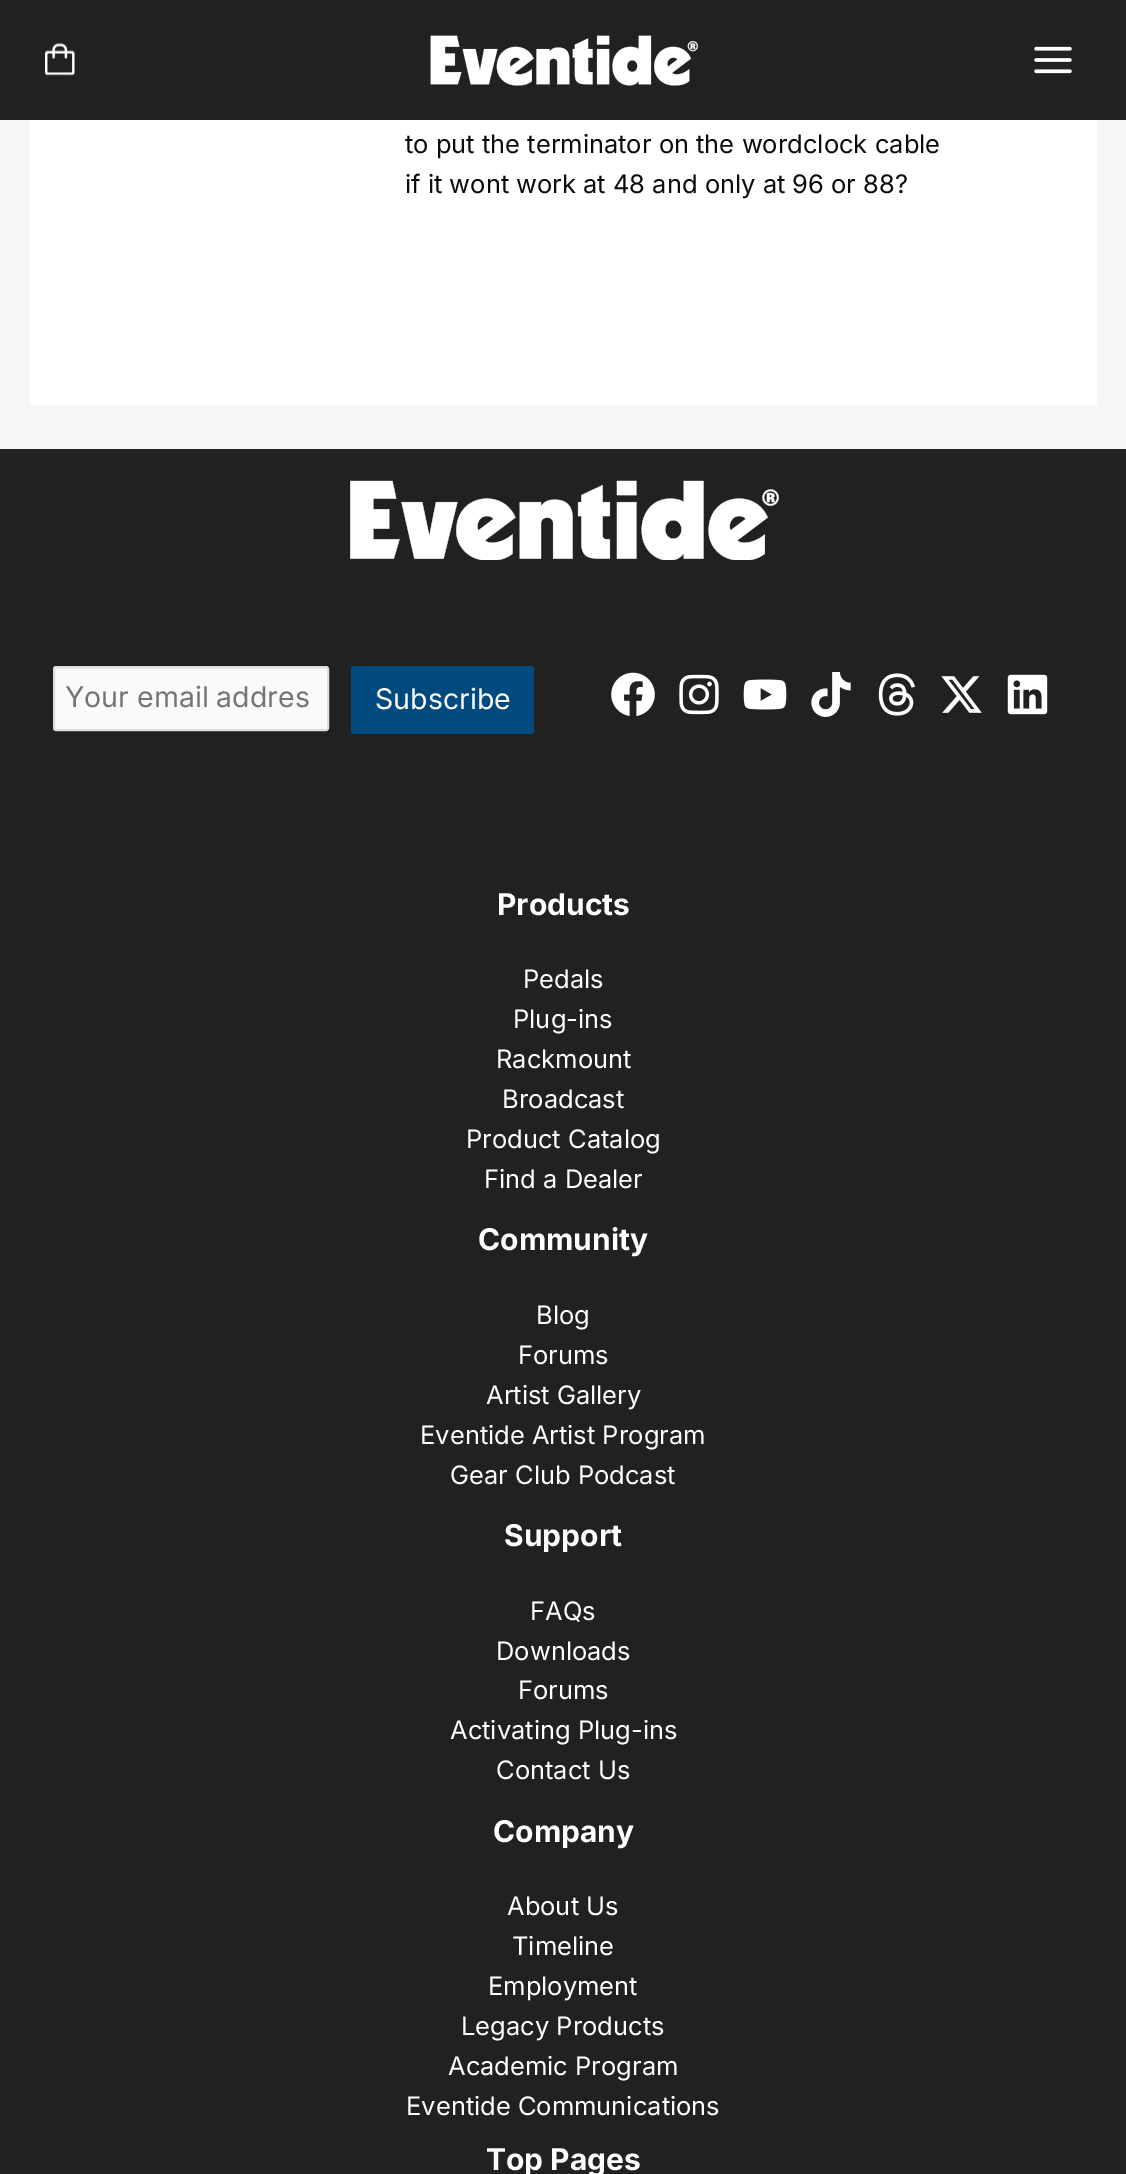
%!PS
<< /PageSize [1126 2174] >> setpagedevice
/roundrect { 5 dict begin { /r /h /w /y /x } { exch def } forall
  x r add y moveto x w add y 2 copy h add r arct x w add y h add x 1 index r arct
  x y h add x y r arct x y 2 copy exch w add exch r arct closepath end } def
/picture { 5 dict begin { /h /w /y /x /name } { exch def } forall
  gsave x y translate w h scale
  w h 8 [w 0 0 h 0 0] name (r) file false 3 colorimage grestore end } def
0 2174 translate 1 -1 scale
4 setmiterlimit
0.965 setgray
0 0 1126 2174 rectfill
0.133 0.129 0.129 setrgbcolor
0 0 1126 120 rectfill
(img1.rgb) 45 43 30 33 picture
(img2.rgb) 430 35 268 51 picture
(img3.rgb) 1034 46 38 28 picture
1 setgray
30 120 1067 285 rectfill
/Inter-Regular [25.5 0 0 -25.5 0 0] selectfont
0.047 setgray
405 153 moveto (to put the terminator on the wordclock cable) show
405 193 moveto (if it wont work at 48 and only at 96 or 88?) show
0.133 0.129 0.129 setrgbcolor
0 449 1126 1725 rectfill
(img4.rgb) 350 480 429 80 picture
0.98 setgray
54 667 274 63 2 roundrect gsave fill grestore
0.867 setgray
2 setlinewidth
stroke
/Inter-Regular [28.5 0 0 -28.5 0 0] selectfont
0.459 setgray
65 707 moveto (Your email addres) show
0 0.29 0.502 setrgbcolor
351 666 183 68 3 roundrect fill
1 setgray
375 709 moveto (Subscribe) show
(img5.rgb) 611 672 44 44 picture
(img6.rgb) 679 674 40 41 picture
(img7.rgb) 743 679 44 31 picture
(img8.rgb) 811 672 40 45 picture
(img9.rgb) 878 673 37 43 picture
(img10.rgb) 941 676 41 37 picture
(img11.rgb) 1007 674 41 41 picture
/Inter-Bold [30 0 0 -30 0 0] selectfont
497 915 moveto (Products) show
/Inter-Regular [25.5 0 0 -25.5 0 0] selectfont
523 988 moveto (Pedals) show
513 1028 moveto (Plug-ins) show
496 1068 moveto (Rackmount) show
502 1108 moveto (Broadcast) show
466 1148 moveto (Product Catalog) show
484 1188 moveto (Find a Dealer) show
/Inter-Bold [30 0 0 -30 0 0] selectfont
478 1250 moveto (Community) show
/Inter-Regular [25.5 0 0 -25.5 0 0] selectfont
536 1324 moveto (Blog) show
518 1364 moveto (Forums) show
486 1404 moveto (Artist Gallery) show
420 1444 moveto (Eventide Artist Program) show
450 1484 moveto (Gear Club Podcast) show
/Inter-Bold [30 0 0 -30 0 0] selectfont
504 1546 moveto (Support) show
/Inter-Regular [25.5 0 0 -25.5 0 0] selectfont
530 1620 moveto (FAQs) show
496 1660 moveto (Downloads) show
518 1699 moveto (Forums) show
450 1739 moveto (Activating Plug-ins) show
496 1779 moveto (Contact Us) show
/Inter-Bold [30 0 0 -30 0 0] selectfont
493 1842 moveto (Company) show
/Inter-Regular [25.5 0 0 -25.5 0 0] selectfont
507 1915 moveto (About Us) show
512 1955 moveto (Timeline) show
488 1995 moveto (Employment) show
461 2035 moveto (Legacy Products) show
448 2075 moveto (Academic Program) show
406 2115 moveto (Eventide Communications) show
/Inter-Bold [30 0 0 -30 0 0] selectfont
486 2170 moveto (Top Pages) show
showpage
